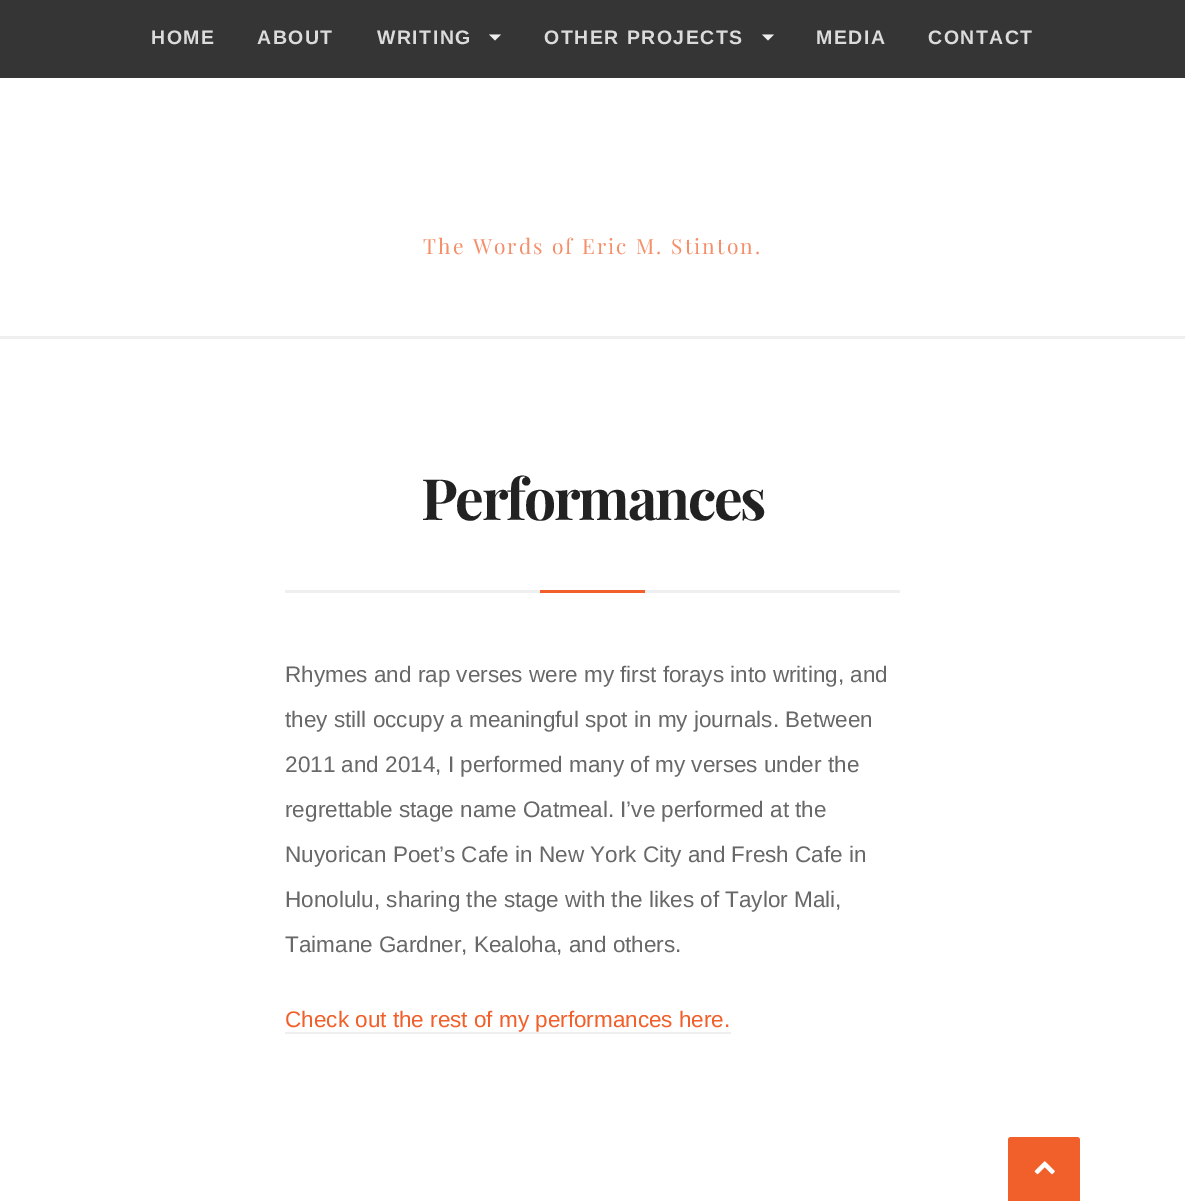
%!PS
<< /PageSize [1185 1201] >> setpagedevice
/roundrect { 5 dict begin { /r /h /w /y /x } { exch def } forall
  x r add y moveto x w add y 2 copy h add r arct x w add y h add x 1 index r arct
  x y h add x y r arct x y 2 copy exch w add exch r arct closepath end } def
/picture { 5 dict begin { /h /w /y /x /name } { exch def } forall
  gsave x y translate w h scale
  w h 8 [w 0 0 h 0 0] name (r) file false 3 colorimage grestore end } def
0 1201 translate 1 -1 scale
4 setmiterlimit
1 setgray
0 0 1185 1201 rectfill
0.208 setgray
0 0 1185 78 rectfill
/LiberationSans-Bold [19.5 0 0 -19.5 0 0] selectfont
0.859 setgray
151 44 moveto 1.5 0 (HOME) ashow
257 44 moveto 1.5 0 (ABOUT) ashow
377 44 moveto 1.5 0 (WRITING) ashow
0.933 setgray
newpath 489 34.5 moveto 501 34.5 lineto 495 40.5 lineto closepath fill
0.859 setgray
544 44 moveto 1.5 0 (OTHER PROJECTS) ashow
0.933 setgray
newpath 762 34.5 moveto 774 34.5 lineto 768 40.5 lineto closepath fill
0.859 setgray
816 44 moveto 1.5 0 (MEDIA) ashow
928 44 moveto 1.5 0 (CONTACT) ashow
/PlayfairDisplay-Regular [21 0 0 -21 0 0] selectfont
0.961 0.561 0.416 setrgbcolor
423 254 moveto 2.1 0 (The Words of Eric M. Stinton.) ashow
0.937 setgray
0 336 1185 3 rectfill
/PlayfairDisplay-Bold [57 0 0 -57 0 0] selectfont
0.133 setgray
421 520 moveto -2.25 0 (Performances) ashow
0.937 setgray
285 590 615 3 rectfill
0.945 0.373 0.165 setrgbcolor
540 590 105 3 rectfill
/LiberationSans-Regular [22.5 0 0 -22.5 0 0] selectfont
0.408 setgray
285 682 moveto (Rhymes and rap verses were my first forays into writing, and) show
285 727 moveto (they still occupy a meaningful spot in my journals. Between) show
285 772 moveto (2011 and 2014, I performed many of my verses under the) show
285 817 moveto (regrettable stage name Oatmeal. I’ve performed at the) show
285 862 moveto (Nuyorican Poet’s Cafe in New York City and Fresh Cafe in) show
285 907 moveto (Honolulu, sharing the stage with the likes of Taylor Mali,) show
285 952 moveto (Taimane Gardner, Kealoha, and others.) show
0.945 0.373 0.165 setrgbcolor
285 1027 moveto (Check out the rest of my performances here.) show
0.937 setgray
285 1032 446 2 rectfill
0.945 0.373 0.165 setrgbcolor
1008 1137 72 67 3 roundrect fill
(img1.rgb) 1034 1161 21 14 picture
showpage
